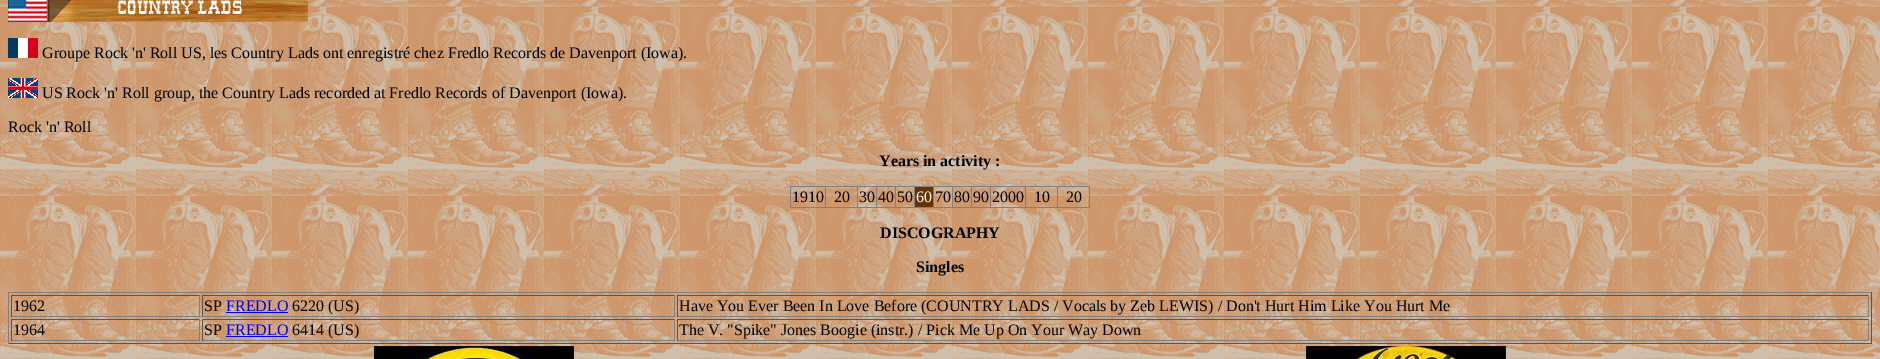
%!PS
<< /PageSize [1880 359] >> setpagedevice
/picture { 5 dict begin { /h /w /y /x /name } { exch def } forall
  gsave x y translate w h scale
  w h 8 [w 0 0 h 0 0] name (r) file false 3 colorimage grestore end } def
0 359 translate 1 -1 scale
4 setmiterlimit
1 setgray
0 0 1880 359 rectfill
(img1.rgb) 0 0 1880 359 picture
(img2.rgb) 8 0 300 22 picture
(img3.rgb) 8 38 30 20 picture
/LiberationSerif-Regular [16 0 0 -16 0 0] selectfont
0 setgray
42 58 moveto (Groupe Rock 'n' Roll US, les Country Lads ont enregistré chez Fredlo Records de Davenport \(Iowa\).) show
(img4.rgb) 8 78 30 20 picture
42 98 moveto (US Rock 'n' Roll group, the Country Lads recorded at Fredlo Records of Davenport \(Iowa\).) show
8 132 moveto (Rock 'n' Roll) show
/LiberationSerif-Bold [16 0 0 -16 0 0] selectfont
879 166 moveto (Years in activity :) show
0.502 setgray
790 186 300 1 rectfill
1089 186 1 22 rectfill
790 207 300 1 rectfill
790 186 1 22 rectfill
/LiberationSerif-Regular [16 0 0 -16 0 0] selectfont
0 setgray
792 202 moveto (1910) show
0.502 setgray
825 186 1 22 rectfill
0 setgray
834 202 moveto (20) show
0.502 setgray
857 186 1 22 rectfill
0 setgray
859 202 moveto (30) show
0.502 setgray
876 186 1 22 rectfill
0 setgray
878 202 moveto (40) show
0.502 setgray
895 186 1 22 rectfill
0 setgray
897 202 moveto (50) show
0.4 0.2 0 setrgbcolor
915 187 18 20 rectfill
0.502 setgray
914 186 1 22 rectfill
1 setgray
916 202 moveto (60) show
0.502 setgray
933 186 1 22 rectfill
0 setgray
935 202 moveto (70) show
0.502 setgray
952 186 1 22 rectfill
0 setgray
954 202 moveto (80) show
0.502 setgray
971 186 1 22 rectfill
0 setgray
973 202 moveto (90) show
0.502 setgray
990 186 1 22 rectfill
0 setgray
992 202 moveto (2000) show
0.502 setgray
1025 186 1 22 rectfill
0 setgray
1034 202 moveto (10) show
0.502 setgray
1057 186 1 22 rectfill
0 setgray
1066 202 moveto (20) show
/LiberationSerif-Bold [16 0 0 -16 0 0] selectfont
880 238 moveto (DISCOGRAPHY) show
916 272 moveto (Singles) show
0.502 setgray
8 292 1864 1 rectfill
0.333 setgray
1871 292 1 52 rectfill
8 343 1864 1 rectfill
0.502 setgray
8 292 1 52 rectfill
0.333 setgray
11 295 189 1 rectfill
0.502 setgray
199 295 1 22 rectfill
11 316 189 1 rectfill
0.333 setgray
11 295 1 22 rectfill
/LiberationSerif-Regular [16 0 0 -16 0 0] selectfont
0 setgray
13 311 moveto (1962) show
0.333 setgray
202 295 473 1 rectfill
0.502 setgray
674 295 1 22 rectfill
202 316 473 1 rectfill
0.333 setgray
202 295 1 22 rectfill
0 setgray
204 311 moveto (SP) show
0 0 0.933 setrgbcolor
226 311 moveto (FREDLO) show
226 312 62 1 rectfill
0 setgray
292 311 moveto (6220 \(US\)) show
0.333 setgray
677 295 1192 1 rectfill
0.502 setgray
1868 295 1 22 rectfill
677 316 1192 1 rectfill
0.333 setgray
677 295 1 22 rectfill
0 setgray
679 311 moveto (Have You Ever Been In Love Before \(COUNTRY LADS / Vocals by Zeb LEWIS\) / Don't Hurt Him Like You Hurt Me) show
0.333 setgray
11 319 189 1 rectfill
0.502 setgray
199 319 1 22 rectfill
11 340 189 1 rectfill
0.333 setgray
11 319 1 22 rectfill
0 setgray
13 335 moveto (1964) show
0.333 setgray
202 319 473 1 rectfill
0.502 setgray
674 319 1 22 rectfill
202 340 473 1 rectfill
0.333 setgray
202 319 1 22 rectfill
0 setgray
204 335 moveto (SP) show
0 0 0.933 setrgbcolor
226 335 moveto (FREDLO) show
226 336 62 1 rectfill
0 setgray
292 335 moveto (6414 \(US\)) show
0.333 setgray
677 319 1192 1 rectfill
0.502 setgray
1868 319 1 22 rectfill
677 340 1192 1 rectfill
0.333 setgray
677 319 1 22 rectfill
0 setgray
679 335 moveto (The V. "Spike" Jones Boogie \(instr.\) / Pick Me Up On Your Way Down) show
(img5.rgb) 374 346 200 13 picture
(img6.rgb) 1306 346 200 13 picture
showpage
